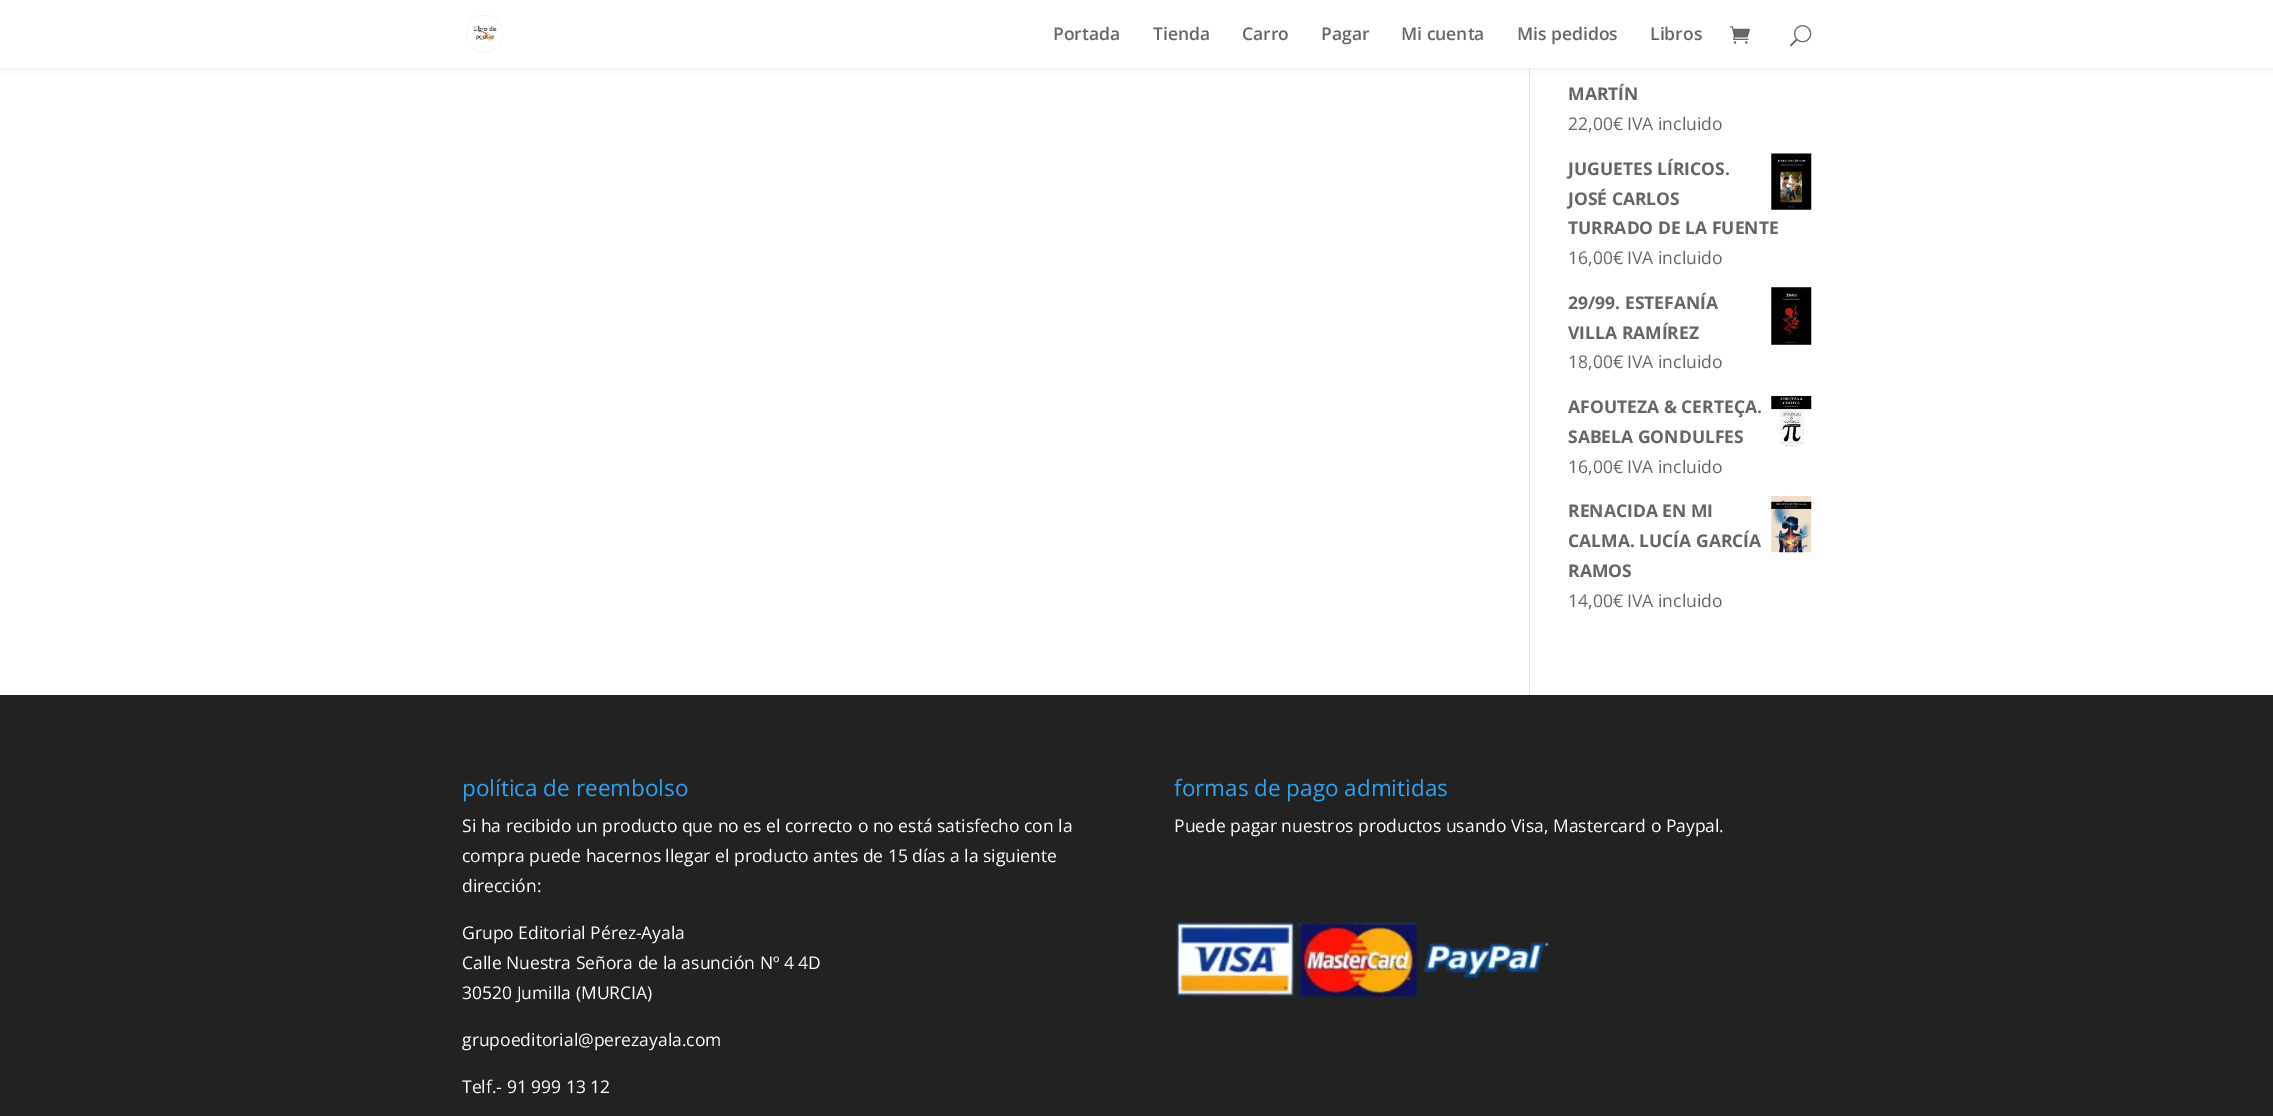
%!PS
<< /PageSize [2273 1116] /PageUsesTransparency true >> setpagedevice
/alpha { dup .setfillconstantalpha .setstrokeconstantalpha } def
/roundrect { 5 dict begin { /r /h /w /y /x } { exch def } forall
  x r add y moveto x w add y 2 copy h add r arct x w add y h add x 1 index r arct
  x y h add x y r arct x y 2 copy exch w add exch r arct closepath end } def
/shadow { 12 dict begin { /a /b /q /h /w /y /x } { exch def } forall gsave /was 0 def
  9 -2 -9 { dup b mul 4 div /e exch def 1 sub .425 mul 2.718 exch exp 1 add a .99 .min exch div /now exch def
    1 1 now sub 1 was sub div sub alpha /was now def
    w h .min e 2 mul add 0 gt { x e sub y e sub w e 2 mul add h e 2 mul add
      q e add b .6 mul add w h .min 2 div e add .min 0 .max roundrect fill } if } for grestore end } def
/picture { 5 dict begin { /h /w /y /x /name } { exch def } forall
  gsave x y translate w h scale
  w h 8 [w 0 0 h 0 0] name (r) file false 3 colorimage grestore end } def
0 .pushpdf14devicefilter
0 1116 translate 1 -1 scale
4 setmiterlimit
1 setgray
0 0 2273 1116 rectfill
0.886 setgray
1529 68 1 627 rectfill
0 setgray
0 0 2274 68 0 4.5 0.1 shadow
1 setgray
0 0 2273 68 rectfill
(img1.rgb) 466 15 37 38 picture
/OpenSans-SemiBold [17.5 0 0 -17.5 0 0] selectfont
0.4 setgray
1053 40 moveto (Portada) show
1153 40 moveto (Tienda) show
1242 40 moveto (Carro) show
1321 40 moveto (Pagar) show
1401 40 moveto (Mi cuenta) show
1517 40 moveto (Mis pedidos) show
1650 40 moveto (Libros) show
(img2.rgb) 1730 26 20 18 picture
(img3.rgb) 1790 25 22 22 picture
/OpenSans-Bold [17.5 0 0 -17.5 0 0] selectfont
1568 100 moveto (MARTÍN) show
/OpenSans-Regular [17.5 0 0 -17.5 0 0] selectfont
1568 130 moveto (22,00€ IVA incluido) show
/OpenSans-Bold [17.5 0 0 -17.5 0 0] selectfont
1568 175 moveto (JUGUETES LÍRICOS.) show
(img4.rgb) 1771 153 41 57 picture
1568 205 moveto (JOSÉ CARLOS) show
1568 234 moveto (TURRADO DE LA FUENTE) show
/OpenSans-Regular [17.5 0 0 -17.5 0 0] selectfont
1568 264 moveto (16,00€ IVA incluido) show
/OpenSans-Bold [17.5 0 0 -17.5 0 0] selectfont
1568 309 moveto (29/99. ESTEFANÍA) show
(img5.rgb) 1771 287 41 58 picture
1568 339 moveto (VILLA RAMÍREZ) show
/OpenSans-Regular [17.5 0 0 -17.5 0 0] selectfont
1568 368 moveto (18,00€ IVA incluido) show
/OpenSans-Bold [17.5 0 0 -17.5 0 0] selectfont
1568 413 moveto (AFOUTEZA & CERTEÇA.) show
(img6.rgb) 1771 395 41 52 picture
1568 443 moveto (SABELA GONDULFES) show
/OpenSans-Regular [17.5 0 0 -17.5 0 0] selectfont
1568 473 moveto (16,00€ IVA incluido) show
/OpenSans-Bold [17.5 0 0 -17.5 0 0] selectfont
1568 517 moveto (RENACIDA EN MI) show
(img7.rgb) 1771 496 41 57 picture
1568 547 moveto (CALMA. LUCÍA GARCÍA) show
1568 577 moveto (RAMOS) show
/OpenSans-Regular [17.5 0 0 -17.5 0 0] selectfont
1568 607 moveto (14,00€ IVA incluido) show
0.133 setgray
0 695 2273 421 rectfill
/OpenSans-Regular [22.5 0 0 -22.5 0 0] selectfont
0.18 0.639 0.949 setrgbcolor
462 796 moveto (política de reembolso) show
/OpenSans-Regular [17.5 0 0 -17.5 0 0] selectfont
1 setgray
462 832 moveto (Si ha recibido un producto que no es el correcto o no está satisfecho con la) show
462 862 moveto (compra puede hacernos llegar el producto antes de 15 días a la siguiente) show
462 892 moveto (dirección:) show
462 939 moveto (Grupo Editorial Pérez-Ayala) show
462 969 moveto (Calle Nuestra Señora de la asunción Nº 4 4D) show
462 999 moveto (30520 Jumilla \(MURCIA\)) show
462 1046 moveto (grupoeditorial@perezayala.com) show
462 1093 moveto (Telf.- 91 999 13 12) show
/OpenSans-Regular [22.5 0 0 -22.5 0 0] selectfont
0.18 0.639 0.949 setrgbcolor
1174 796 moveto (formas de pago admitidas) show
/OpenSans-Regular [17.5 0 0 -17.5 0 0] selectfont
1 setgray
1174 832 moveto (Puede pagar nuestros productos usando Visa, Mastercard o Paypal.) show
(img8.rgb) 1176 922 373 76 picture
.poppdf14devicefilter showpage
